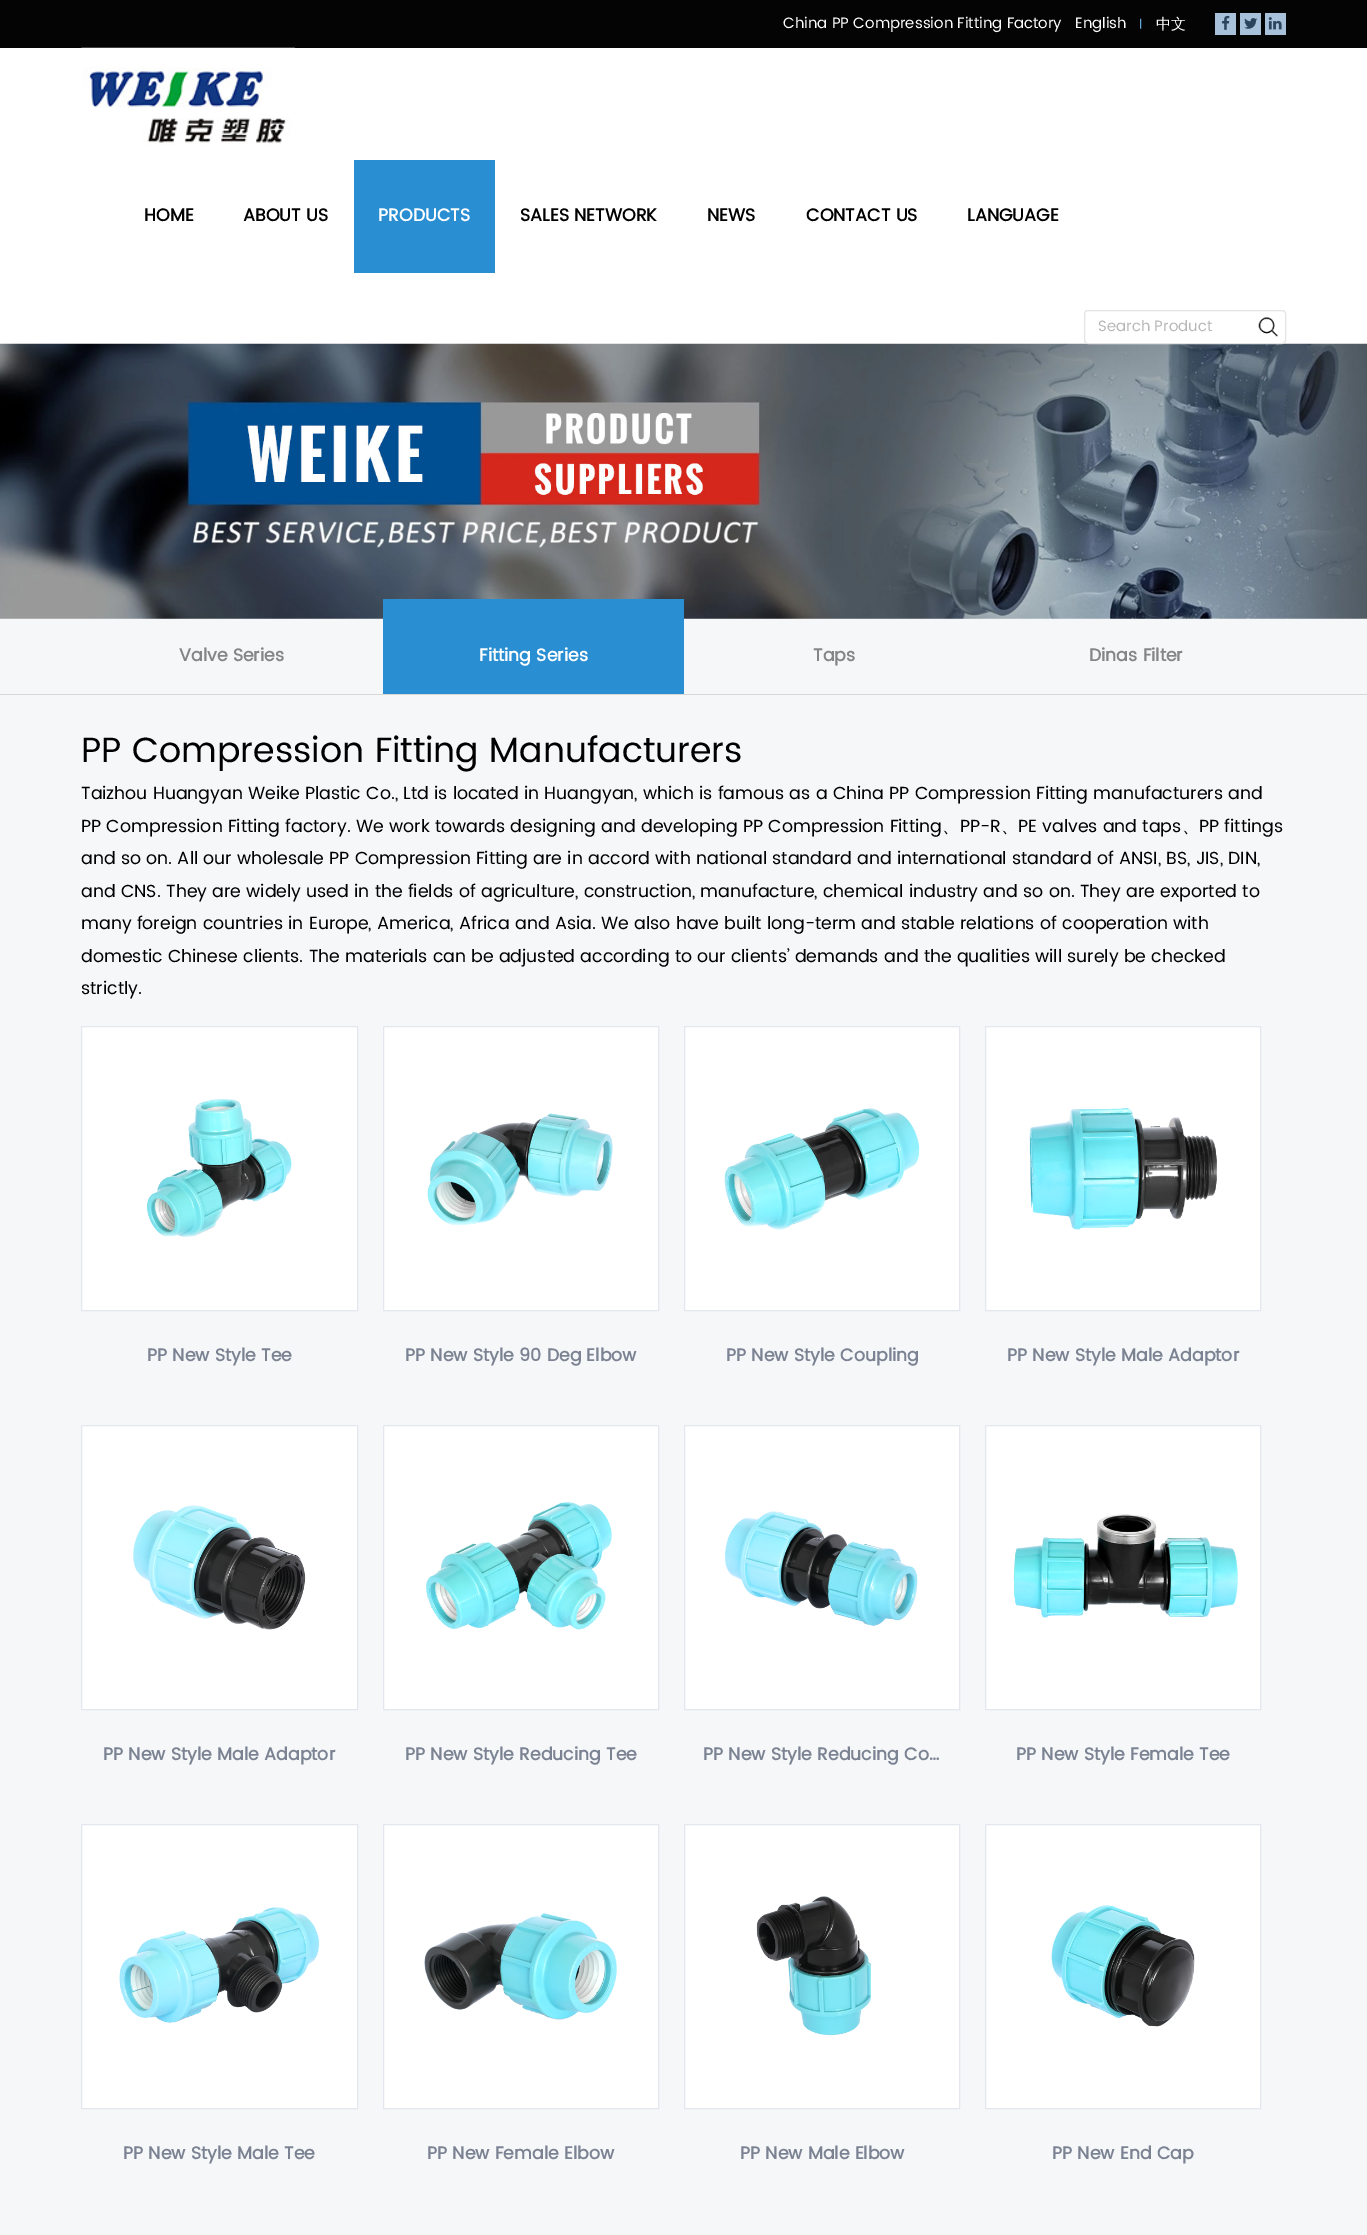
%!PS
<< /PageSize [1367 2235] >> setpagedevice
/roundrect { 5 dict begin { /r /h /w /y /x } { exch def } forall
  x r add y moveto x w add y 2 copy h add r arct x w add y h add x 1 index r arct
  x y h add x y r arct x y 2 copy exch w add exch r arct closepath end } def
/picture { 5 dict begin { /h /w /y /x /name } { exch def } forall
  gsave x y translate w h scale
  w h 8 [w 0 0 h 0 0] name (r) file false 3 colorimage grestore end } def
0 2235 translate 1 -1 scale
4 setmiterlimit
1 setgray
0 0 1367 2235 rectfill
0.016 setgray
0 0 1367 48 rectfill
/Poppins-Regular [15 0 0 -15 0 0] selectfont
1 setgray
783 28 moveto (China PP Compression Fitting Factory) show
(img1.rgb) 1140 18 2 11 picture
1075 28 moveto (English) show
/WenQuanYiZenHei-Medium [15 0 0 -15 0 0] selectfont
1156 29 moveto (中文) show
0.651 0.757 0.851 setrgbcolor
1215 13 21 22 rectfill
(img2.rgb) 1222 15 8 15 picture
1240 13 21 22 rectfill
(img3.rgb) 1244 18 14 11 picture
1265 13 21 22 rectfill
(img4.rgb) 1268 17 14 13 picture
(img5.rgb) 81 47 214 98 picture
/Poppins-Bold [17.5 0 0 -17.5 0 0] selectfont
0 setgray
144 221 moveto (HOME) show
243 221 moveto (ABOUT US) show
0.161 0.561 0.824 setrgbcolor
354 160 141 113 rectfill
1 setgray
378 221 moveto (PRODUCTS) show
0 setgray
520 221 moveto (SALES NETWORK) show
707 221 moveto (NEWS) show
806 221 moveto (CONTACT US) show
967 221 moveto (LANGUAGE) show
0.965 0.969 0.976 setrgbcolor
0 618 1367 1617 rectfill
(img7.rgb) 0 343 1367 276 picture
0.894 setgray
1084.5 310.5 201 33 3.5 roundrect stroke
/Poppins-Regular [15 0 0 -15 0 0] selectfont
0.718 setgray
1098 331 moveto (Search Product) show
(img6.rgb) 1258 317 20 20 picture
0.843 setgray
0 694 1367 1 rectfill
/Poppins-Bold [17.5 0 0 -17.5 0 0] selectfont
0.522 0.522 0.525 setrgbcolor
179 661 moveto (Valve Series) show
0.161 0.561 0.824 setrgbcolor
383 599 301 95 rectfill
1 setgray
479 661 moveto (Fitting Series) show
0.522 0.522 0.525 setrgbcolor
813 661 moveto (Taps) show
1089 661 moveto (Dinas Filter) show
/Poppins-Regular [35 0 0 -35 0 0] selectfont
0 setgray
81 762 moveto (PP Compression Fitting Manufacturers) show
/Poppins-Regular [17.5 0 0 -17.5 0 0] selectfont
81 799 moveto (Taizhou Huangyan Weike Plastic Co., Ltd is located in Huangyan, which is famous as a China PP Compression Fitting manufacturers and) show
81 832 moveto (PP Compression Fitting factory. We work towards designing and developing PP Compression Fitting) show
/WenQuanYiZenHei-Medium [17.5 0 0 -17.5 0 0] selectfont
942 832 moveto (、) show
/Poppins-Regular [17.5 0 0 -17.5 0 0] selectfont
960 832 moveto (PP-R) show
/WenQuanYiZenHei-Medium [17.5 0 0 -17.5 0 0] selectfont
1001 832 moveto (、) show
/Poppins-Regular [17.5 0 0 -17.5 0 0] selectfont
1018 832 moveto (PE valves and taps) show
/WenQuanYiZenHei-Medium [17.5 0 0 -17.5 0 0] selectfont
1182 832 moveto (、) show
/Poppins-Regular [17.5 0 0 -17.5 0 0] selectfont
1199 832 moveto (PP fittings) show
81 864 moveto (and so on. All our wholesale PP Compression Fitting are in accord with national standard and international standard of ANSI, BS, JIS, DIN,) show
81 897 moveto (and CNS. They are widely used in the fields of agriculture, construction, manufacture, chemical industry and so on. They are exported to) show
81 929 moveto (many foreign countries in Europe, America, Africa and Asia. We also have built long-term and stable relations of cooperation with) show
81 962 moveto (domestic Chinese clients. The materials can be adjusted according to our clients’ demands and the qualities will surely be checked) show
81 994 moveto (strictly.) show
1 setgray
newpath 81.5 1026.5 moveto 357.5 1026.5 lineto 357.5 1310.5 lineto 81.5 1310.5 lineto closepath gsave fill grestore
0.894 0.906 0.933 setrgbcolor
stroke
(img8.rgb) 146 1099 146 138 picture
/Poppins-Bold [17.5 0 0 -17.5 0 0] selectfont
0.482 0.514 0.576 setrgbcolor
147 1361 moveto (PP New Style Tee) show
1 setgray
newpath 383.5 1026.5 moveto 658.5 1026.5 lineto 658.5 1310.5 lineto 383.5 1310.5 lineto closepath gsave fill grestore
0.894 0.906 0.933 setrgbcolor
stroke
(img9.rgb) 427 1113 186 112 picture
0.482 0.514 0.576 setrgbcolor
405 1361 moveto (PP New Style 90 Deg Elbow) show
1 setgray
newpath 684.5 1026.5 moveto 959.5 1026.5 lineto 959.5 1310.5 lineto 684.5 1310.5 lineto closepath gsave fill grestore
0.894 0.906 0.933 setrgbcolor
stroke
(img10.rgb) 724 1108 196 122 picture
0.482 0.514 0.576 setrgbcolor
726 1361 moveto (PP New Style Coupling) show
1 setgray
newpath 985.5 1026.5 moveto 1260.5 1026.5 lineto 1260.5 1310.5 lineto 985.5 1310.5 lineto closepath gsave fill grestore
0.894 0.906 0.933 setrgbcolor
stroke
(img11.rgb) 1029 1108 188 122 picture
0.482 0.514 0.576 setrgbcolor
1007 1361 moveto (PP New Style Male Adaptor) show
1 setgray
newpath 81.5 1425.5 moveto 357.5 1425.5 lineto 357.5 1709.5 lineto 81.5 1709.5 lineto closepath gsave fill grestore
0.894 0.906 0.933 setrgbcolor
stroke
(img12.rgb) 133 1505 173 125 picture
0.482 0.514 0.576 setrgbcolor
103 1760 moveto (PP New Style Male Adaptor) show
1 setgray
newpath 383.5 1425.5 moveto 658.5 1425.5 lineto 658.5 1709.5 lineto 383.5 1709.5 lineto closepath gsave fill grestore
0.894 0.906 0.933 setrgbcolor
stroke
(img13.rgb) 425 1501 187 173 picture
0.482 0.514 0.576 setrgbcolor
405 1760 moveto (PP New Style Reducing Tee) show
1 setgray
newpath 684.5 1425.5 moveto 959.5 1425.5 lineto 959.5 1709.5 lineto 684.5 1709.5 lineto closepath gsave fill grestore
0.894 0.906 0.933 setrgbcolor
stroke
(img14.rgb) 725 1511 193 115 picture
0.482 0.514 0.576 setrgbcolor
703 1760 moveto (PP New Style Reducing Co…) show
1 setgray
newpath 985.5 1425.5 moveto 1260.5 1425.5 lineto 1260.5 1709.5 lineto 985.5 1709.5 lineto closepath gsave fill grestore
0.894 0.906 0.933 setrgbcolor
stroke
(img15.rgb) 1013 1514 225 134 picture
0.482 0.514 0.576 setrgbcolor
1016 1760 moveto (PP New Style Female Tee) show
1 setgray
newpath 81.5 1824.5 moveto 357.5 1824.5 lineto 357.5 2108.5 lineto 81.5 2108.5 lineto closepath gsave fill grestore
0.894 0.906 0.933 setrgbcolor
stroke
(img16.rgb) 119 1907 201 116 picture
0.482 0.514 0.576 setrgbcolor
123 2159 moveto (PP New Style Male Tee) show
1 setgray
newpath 383.5 1824.5 moveto 658.5 1824.5 lineto 658.5 2108.5 lineto 383.5 2108.5 lineto closepath gsave fill grestore
0.894 0.906 0.933 setrgbcolor
stroke
(img17.rgb) 424 1913 193 108 picture
0.482 0.514 0.576 setrgbcolor
427 2159 moveto (PP New Female Elbow) show
1 setgray
newpath 684.5 1824.5 moveto 959.5 1824.5 lineto 959.5 2108.5 lineto 684.5 2108.5 lineto closepath gsave fill grestore
0.894 0.906 0.933 setrgbcolor
stroke
(img18.rgb) 756 1896 116 140 picture
0.482 0.514 0.576 setrgbcolor
740 2159 moveto (PP New Male Elbow) show
1 setgray
newpath 985.5 1824.5 moveto 1260.5 1824.5 lineto 1260.5 2108.5 lineto 985.5 2108.5 lineto closepath gsave fill grestore
0.894 0.906 0.933 setrgbcolor
stroke
(img19.rgb) 1051 1905 144 122 picture
0.482 0.514 0.576 setrgbcolor
1052 2159 moveto (PP New End Cap) show
showpage
